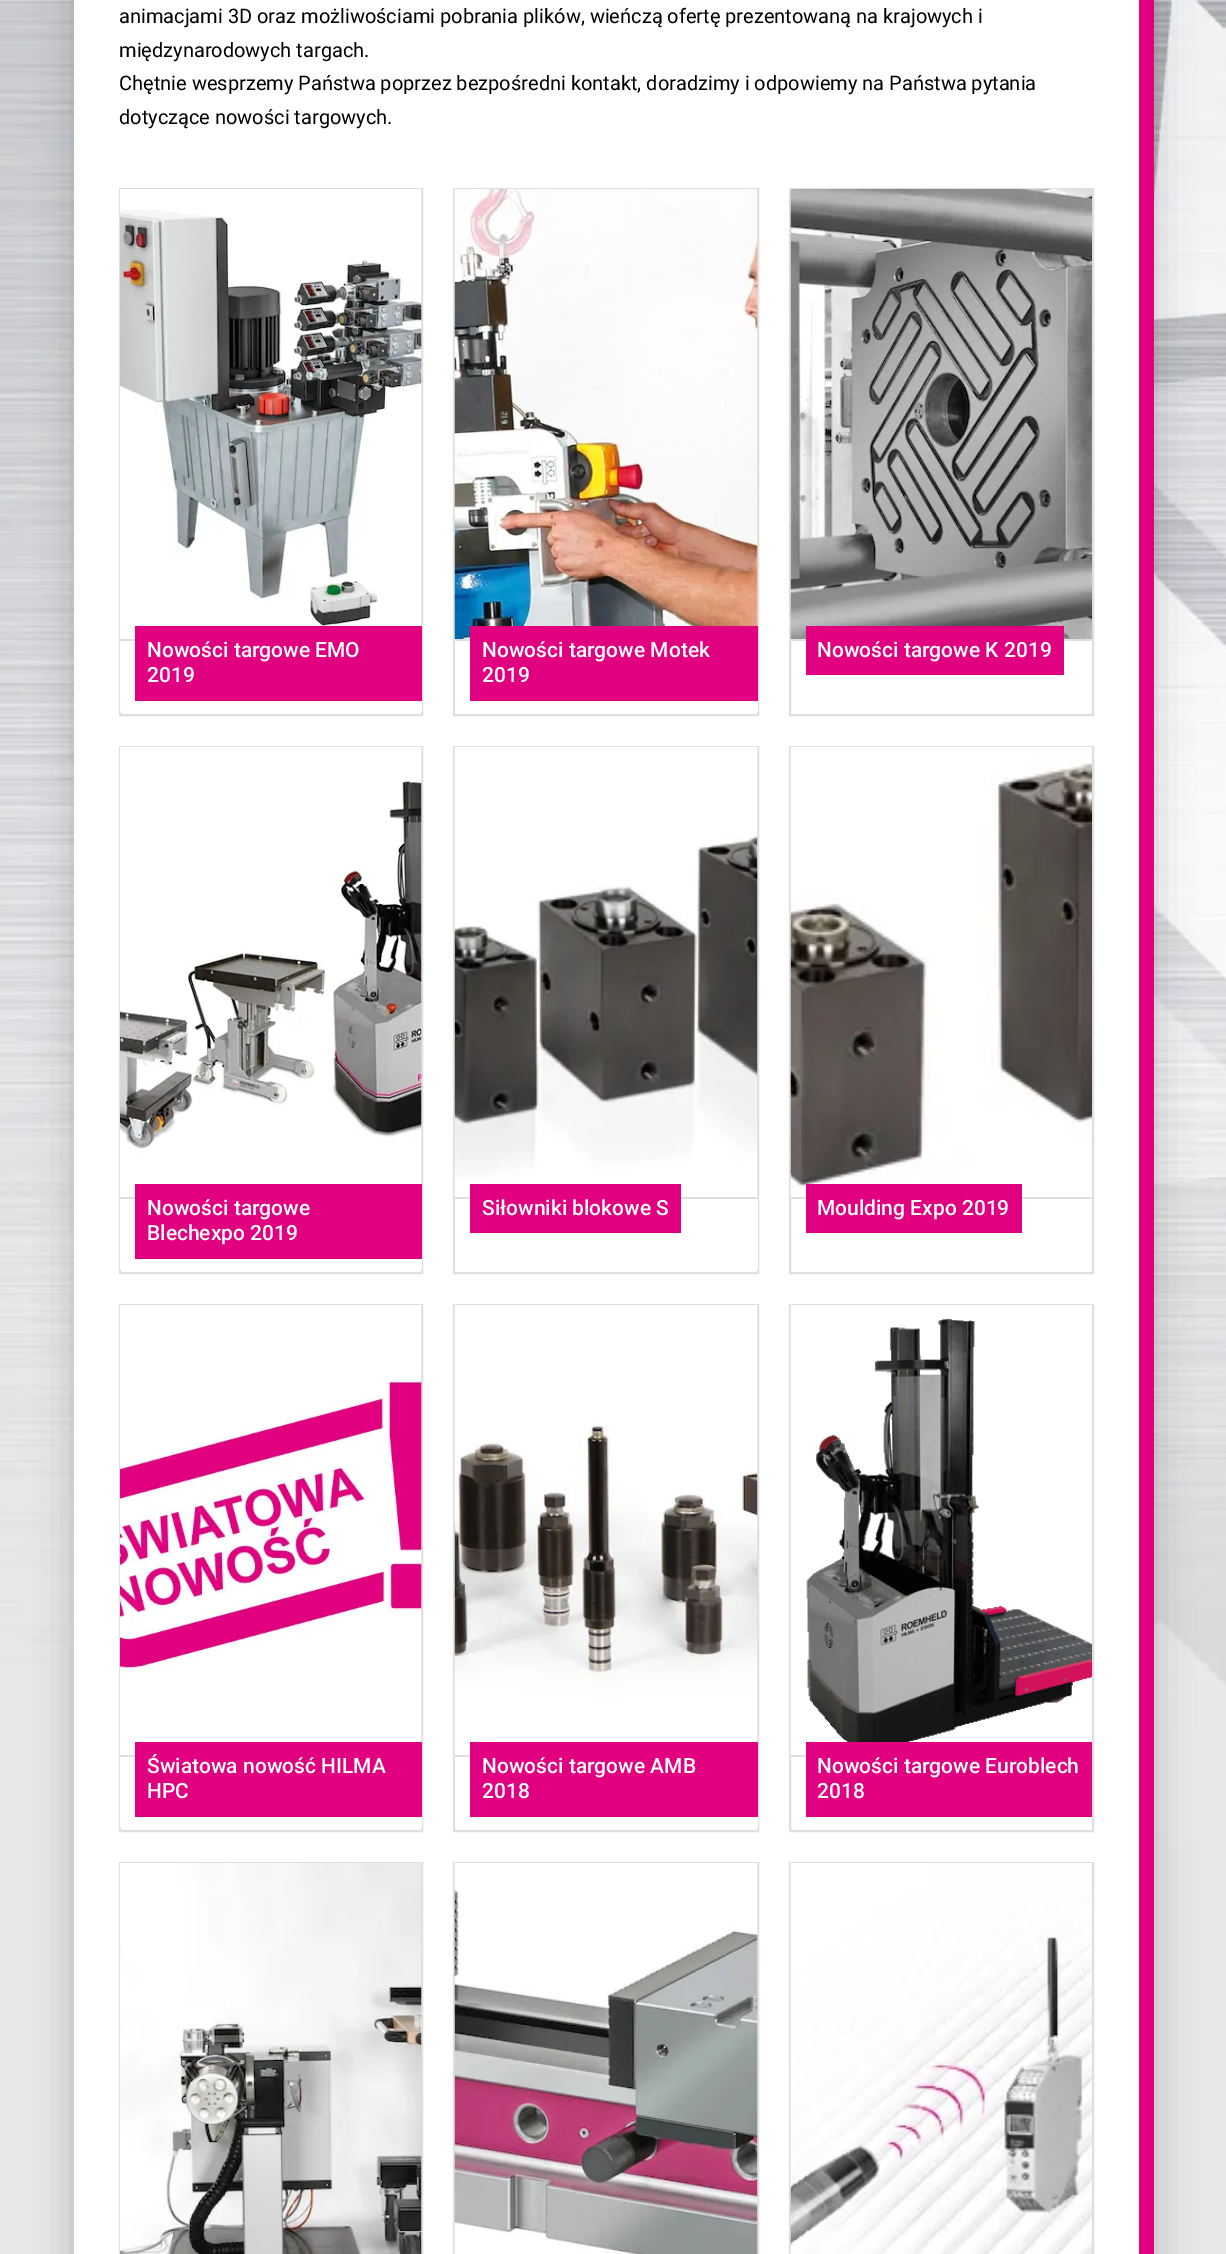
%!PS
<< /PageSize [1226 2254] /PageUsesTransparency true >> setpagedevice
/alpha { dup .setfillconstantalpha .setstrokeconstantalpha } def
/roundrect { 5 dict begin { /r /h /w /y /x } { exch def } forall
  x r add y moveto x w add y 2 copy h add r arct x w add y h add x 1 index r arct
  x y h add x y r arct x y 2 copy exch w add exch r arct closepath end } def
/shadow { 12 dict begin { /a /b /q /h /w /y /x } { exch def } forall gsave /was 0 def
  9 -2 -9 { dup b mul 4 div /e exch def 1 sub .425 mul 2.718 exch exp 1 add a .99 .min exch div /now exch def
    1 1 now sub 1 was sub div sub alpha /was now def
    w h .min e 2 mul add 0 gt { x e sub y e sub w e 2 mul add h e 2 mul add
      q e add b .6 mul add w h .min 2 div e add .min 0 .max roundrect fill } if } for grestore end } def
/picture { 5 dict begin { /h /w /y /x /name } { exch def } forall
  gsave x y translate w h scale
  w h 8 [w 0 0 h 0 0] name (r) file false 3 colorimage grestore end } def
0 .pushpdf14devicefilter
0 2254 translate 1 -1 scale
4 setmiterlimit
1 setgray
0 0 1226 2254 rectfill
(img1.rgb) 0 0 1226 2254 picture
0 setgray
74 -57 1080 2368 0 19 0.2 shadow
1 setgray
74 0 1065 2254 rectfill
/Roboto-Regular [20 0 0 -20 0 0] selectfont
0 setgray
119 23 moveto (animacjami 3D oraz możliwościami pobrania plików, wieńczą ofertę prezentowaną na krajowych i) show
119 57 moveto (międzynarodowych targach.) show
119 90 moveto (Chętnie wesprzemy Państwa poprzez bezpośredni kontakt, doradzimy i odpowiemy na Państwa pytania) show
119 124 moveto (dotyczące nowości targowych.) show
0.875 setgray
2 setlinewidth
120 189 302 526 rectstroke
(img2.rgb) 120 189 302 450 picture
1 setgray
newpath 120 639 moveto 422 639 lineto 422 709 lineto 422 712 420 714 417 714 curveto 125 714 lineto 122 714 120 712 120 709 curveto closepath fill
0.875 setgray
120 639 15 2 rectfill
0.878 0 0.502 setrgbcolor
135 626 287 75 rectfill
/Roboto-Medium [21 0 0 -21 0 0] selectfont
1 setgray
147 657 moveto (Nowości targowe EMO) show
147 682 moveto (2019) show
0.875 setgray
454 189 304 526 rectstroke
(img3.rgb) 454 189 304 450 picture
1 setgray
newpath 455 639 moveto 758 639 lineto 758 709 lineto 758 712 756 714 753 714 curveto 460 714 lineto 457 714 455 712 455 709 curveto closepath fill
0.875 setgray
455 639 15 2 rectfill
0.878 0 0.502 setrgbcolor
470 626 288 75 rectfill
1 setgray
482 657 moveto (Nowości targowe Motek) show
482 682 moveto (2019) show
0.875 setgray
790 189 303 526 rectstroke
(img4.rgb) 790 189 302 450 picture
791 639 301 2 rectfill
0.878 0 0.502 setrgbcolor
806 626 258 49 rectfill
1 setgray
817 657 moveto (Nowości targowe K 2019) show
0.875 setgray
120 747 302 526 rectstroke
(img5.rgb) 120 747 302 450 picture
1 setgray
newpath 120 1197 moveto 422 1197 lineto 422 1267 lineto 422 1270 420 1272 417 1272 curveto 125 1272 lineto 122 1272 120 1270 120 1267 curveto closepath fill
0.875 setgray
120 1197 15 2 rectfill
0.878 0 0.502 setrgbcolor
135 1184 287 75 rectfill
1 setgray
147 1215 moveto (Nowości targowe) show
147 1240 moveto (Blechexpo 2019) show
0.875 setgray
454 747 304 526 rectstroke
(img6.rgb) 454 747 304 450 picture
1 setgray
newpath 455 1197 moveto 758 1197 lineto 758 1267 lineto 758 1270 756 1272 753 1272 curveto 460 1272 lineto 457 1272 455 1270 455 1267 curveto closepath fill
0.875 setgray
455 1197 303 2 rectfill
0.878 0 0.502 setrgbcolor
470 1184 211 49 rectfill
1 setgray
482 1215 moveto (Siłowniki blokowe S) show
0.875 setgray
790 747 303 526 rectstroke
(img7.rgb) 790 747 302 450 picture
791 1197 301 2 rectfill
0.878 0 0.502 setrgbcolor
806 1184 216 49 rectfill
1 setgray
817 1215 moveto (Moulding Expo 2019) show
0.875 setgray
120 1305 302 526 rectstroke
(img8.rgb) 120 1305 302 450 picture
1 setgray
newpath 120 1755 moveto 422 1755 lineto 422 1825 lineto 422 1828 420 1830 417 1830 curveto 125 1830 lineto 122 1830 120 1828 120 1825 curveto closepath fill
0.875 setgray
120 1755 15 2 rectfill
0.878 0 0.502 setrgbcolor
135 1742 287 75 rectfill
1 setgray
147 1773 moveto (Światowa nowość HILMA) show
147 1798 moveto (HPC) show
0.875 setgray
454 1305 304 526 rectstroke
(img9.rgb) 454 1305 304 450 picture
1 setgray
newpath 455 1755 moveto 758 1755 lineto 758 1825 lineto 758 1828 756 1830 753 1830 curveto 460 1830 lineto 457 1830 455 1828 455 1825 curveto closepath fill
0.875 setgray
455 1755 15 2 rectfill
0.878 0 0.502 setrgbcolor
470 1742 288 75 rectfill
1 setgray
482 1773 moveto (Nowości targowe AMB) show
482 1798 moveto (2018) show
0.875 setgray
790 1305 303 526 rectstroke
(img10.rgb) 790 1305 302 450 picture
791 1755 15 2 rectfill
0.878 0 0.502 setrgbcolor
806 1742 286 75 rectfill
1 setgray
817 1773 moveto (Nowości targowe Euroblech) show
817 1798 moveto (2018) show
0.875 setgray
120 1863 302 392 rectstroke
(img11.rgb) 120 1863 302 391 picture
454 1863 304 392 rectstroke
(img12.rgb) 454 1863 304 391 picture
790 1863 303 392 rectstroke
(img13.rgb) 790 1863 302 391 picture
0.878 0 0.502 setrgbcolor
1139 0 15 2254 rectfill
.poppdf14devicefilter showpage
